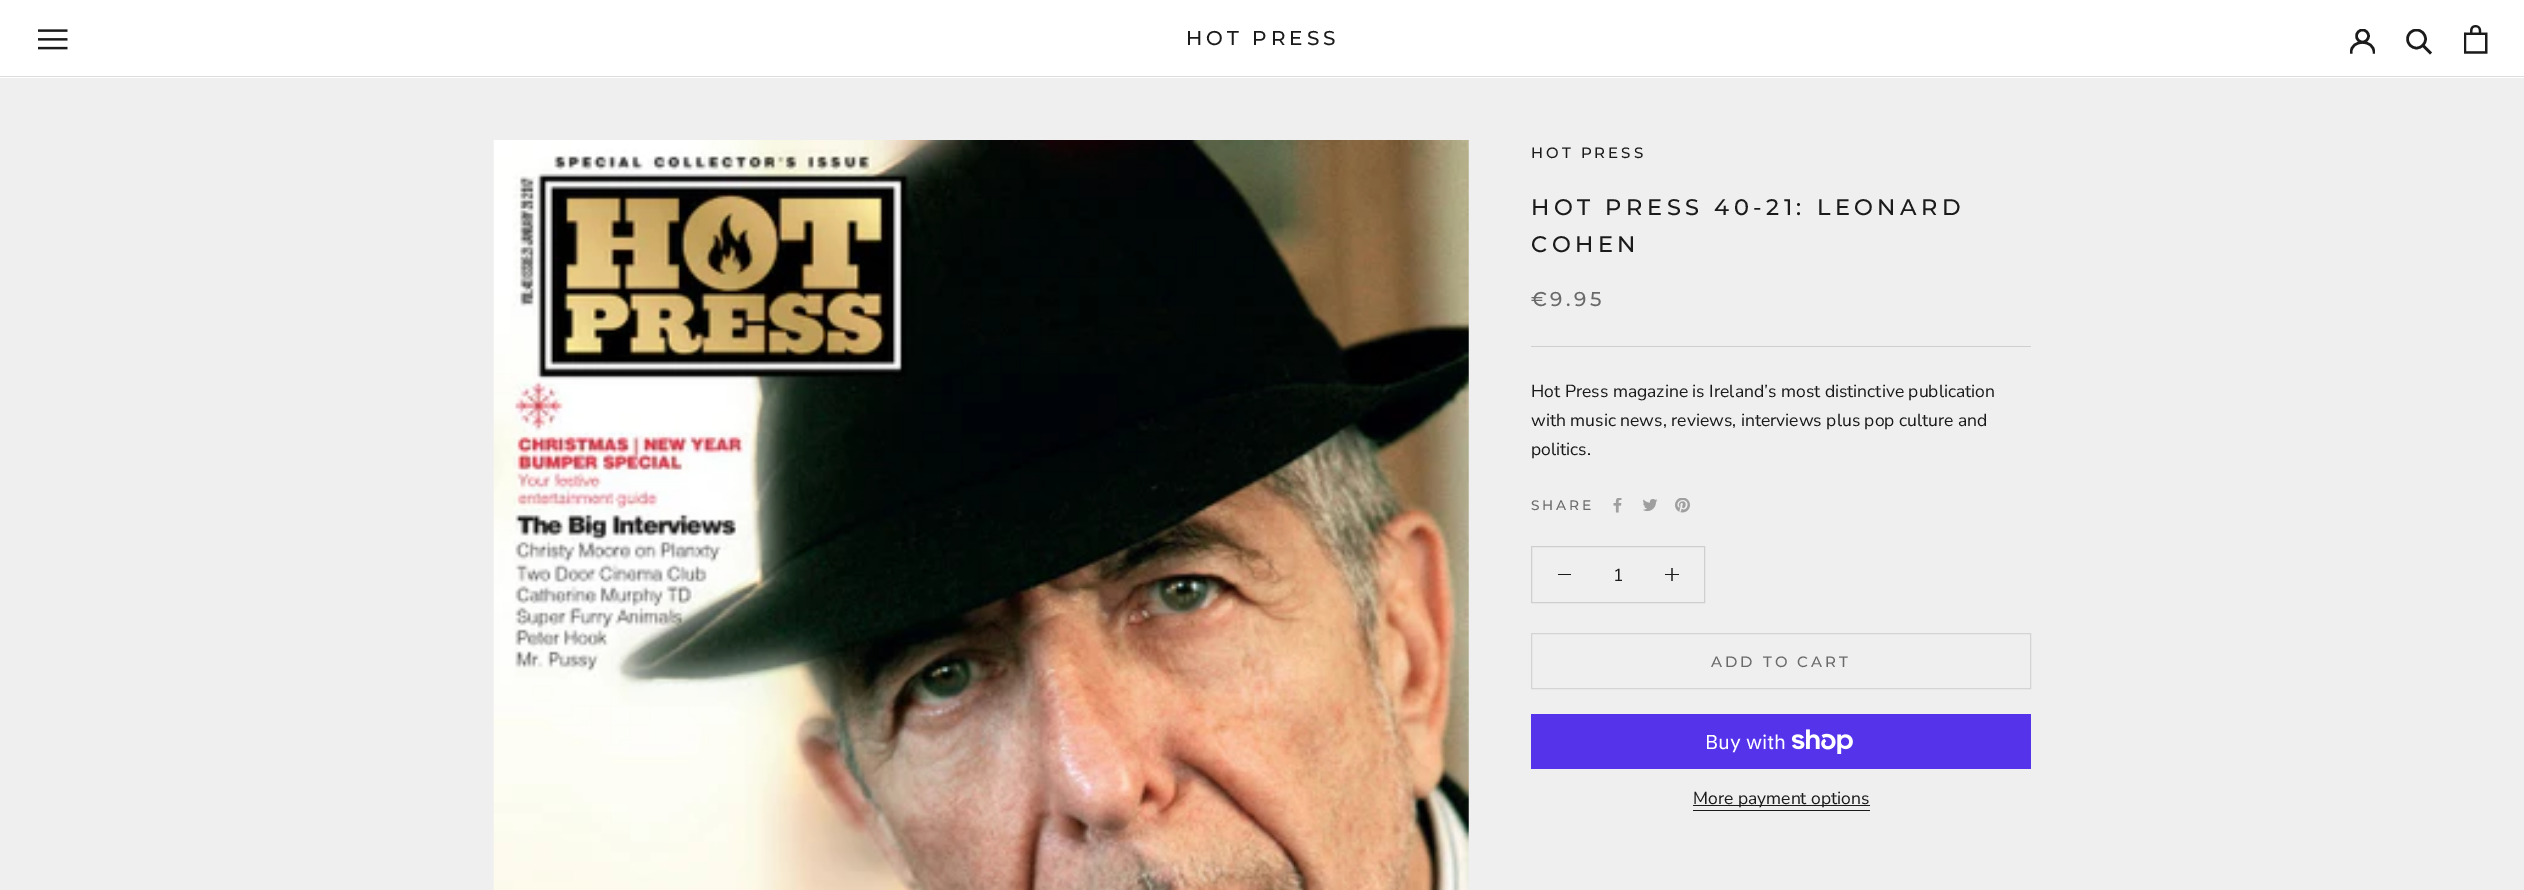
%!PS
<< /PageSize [2524 890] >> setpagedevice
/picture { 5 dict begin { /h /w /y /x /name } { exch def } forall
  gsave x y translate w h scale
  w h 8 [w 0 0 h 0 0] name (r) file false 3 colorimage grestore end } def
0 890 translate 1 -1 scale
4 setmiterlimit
0.937 setgray
0 0 2524 890 rectfill
1 setgray
0 0 2524 78 rectfill
0.867 setgray
0 76 2524 1 rectfill
(img1.rgb) 38 29 30 21 picture
/Montserrat-Medium [20 0 0 -20 0 0] selectfont
0.11 0.106 0.106 setrgbcolor
1186 45 moveto 4 0 (HOT PRESS) ashow
gsave
2350 29 25 25 rectclip
2.5 setlinewidth
2 setlinecap
newpath 2351 52.5 moveto 2351 39 2374 39 2374 52.5 curveto stroke
0 setlinecap
newpath 2362.5 36 6 0 360 arc closepath stroke
grestore
2.5 setlinewidth
2 setlinecap
newpath 2430 52.5 moveto 2423 45.5 lineto stroke
gsave
2406 29 27 26 rectclip
0 setlinecap
newpath 2416.5 39 9 0 360 arc closepath stroke
grestore
(img2.rgb) 2464 25 24 29 picture
(img3.rgb) 493 140 976 750 picture
0.812 setgray
1531 346 500 1 rectfill
/Montserrat-Medium [15 0 0 -15 0 0] selectfont
0.11 0.106 0.106 setrgbcolor
1531 158 moveto 3 0 (HOT PRESS) ashow
/Montserrat-Medium [22.5 0 0 -22.5 0 0] selectfont
1531 215 moveto 4.5 0 (HOT PRESS 40-21: LEONARD) ashow
1531 252 moveto 4.5 0 (COHEN) ashow
/Montserrat-Medium [20 0 0 -20 0 0] selectfont
0.416 setgray
1531 306 moveto 3.5 0 (€9.95) ashow
/NunitoSans-Regular [17.5 0 0 -17.5 0 0] selectfont
0.11 0.106 0.106 setrgbcolor
1531 397 moveto (Hot Press magazine is Ireland’s most distinctive publication) show
1531 426 moveto (with music news, reviews, interviews plus pop culture and) show
1531 455 moveto (politics.) show
/Montserrat-Medium [13.75 0 0 -13.75 0 0] selectfont
0.416 setgray
1531 510 moveto 2.75 0 (SHARE) ashow
(img4.rgb) 1613 498 9 15 picture
(img5.rgb) 1643 499 15 13 picture
(img6.rgb) 1675 498 15 15 picture
0.812 setgray
1 setlinewidth
0 setlinecap
1531.5 546.5 173 56 rectstroke
0.11 0.106 0.106 setrgbcolor
1558 574 13 1 rectfill
/NunitoSans-Regular [17.5 0 0 -17.5 0 0] selectfont
1613 581 moveto (1) show
gsave
1665 568 14 13 rectclip
1.3 setlinewidth
2 setlinecap
newpath 1672 568.5 moveto 1672 580.5 lineto stroke
grestore
1665 574 14 1 rectfill
0.831 setgray
1531.5 633.5 499 55 rectstroke
/Montserrat-Medium [15 0 0 -15 0 0] selectfont
0.416 setgray
1711 667 moveto 3 0 (ADD TO CART) ashow
0.329 0.2 0.922 setrgbcolor
1531 714 500 55 rectfill
/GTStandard-Regular [20 0 0 -20 0 0] selectfont
1 setgray
1705 749 moveto (Buy with) show
(img7.rgb) 1791 729 62 25 picture
0.11 0.106 0.106 setrgbcolor
1693 805 177 1 rectfill
/NunitoSans-Regular [17.5 0 0 -17.5 0 0] selectfont
1693 804 moveto (More payment options) show
1693 810 177 1 rectfill
showpage
